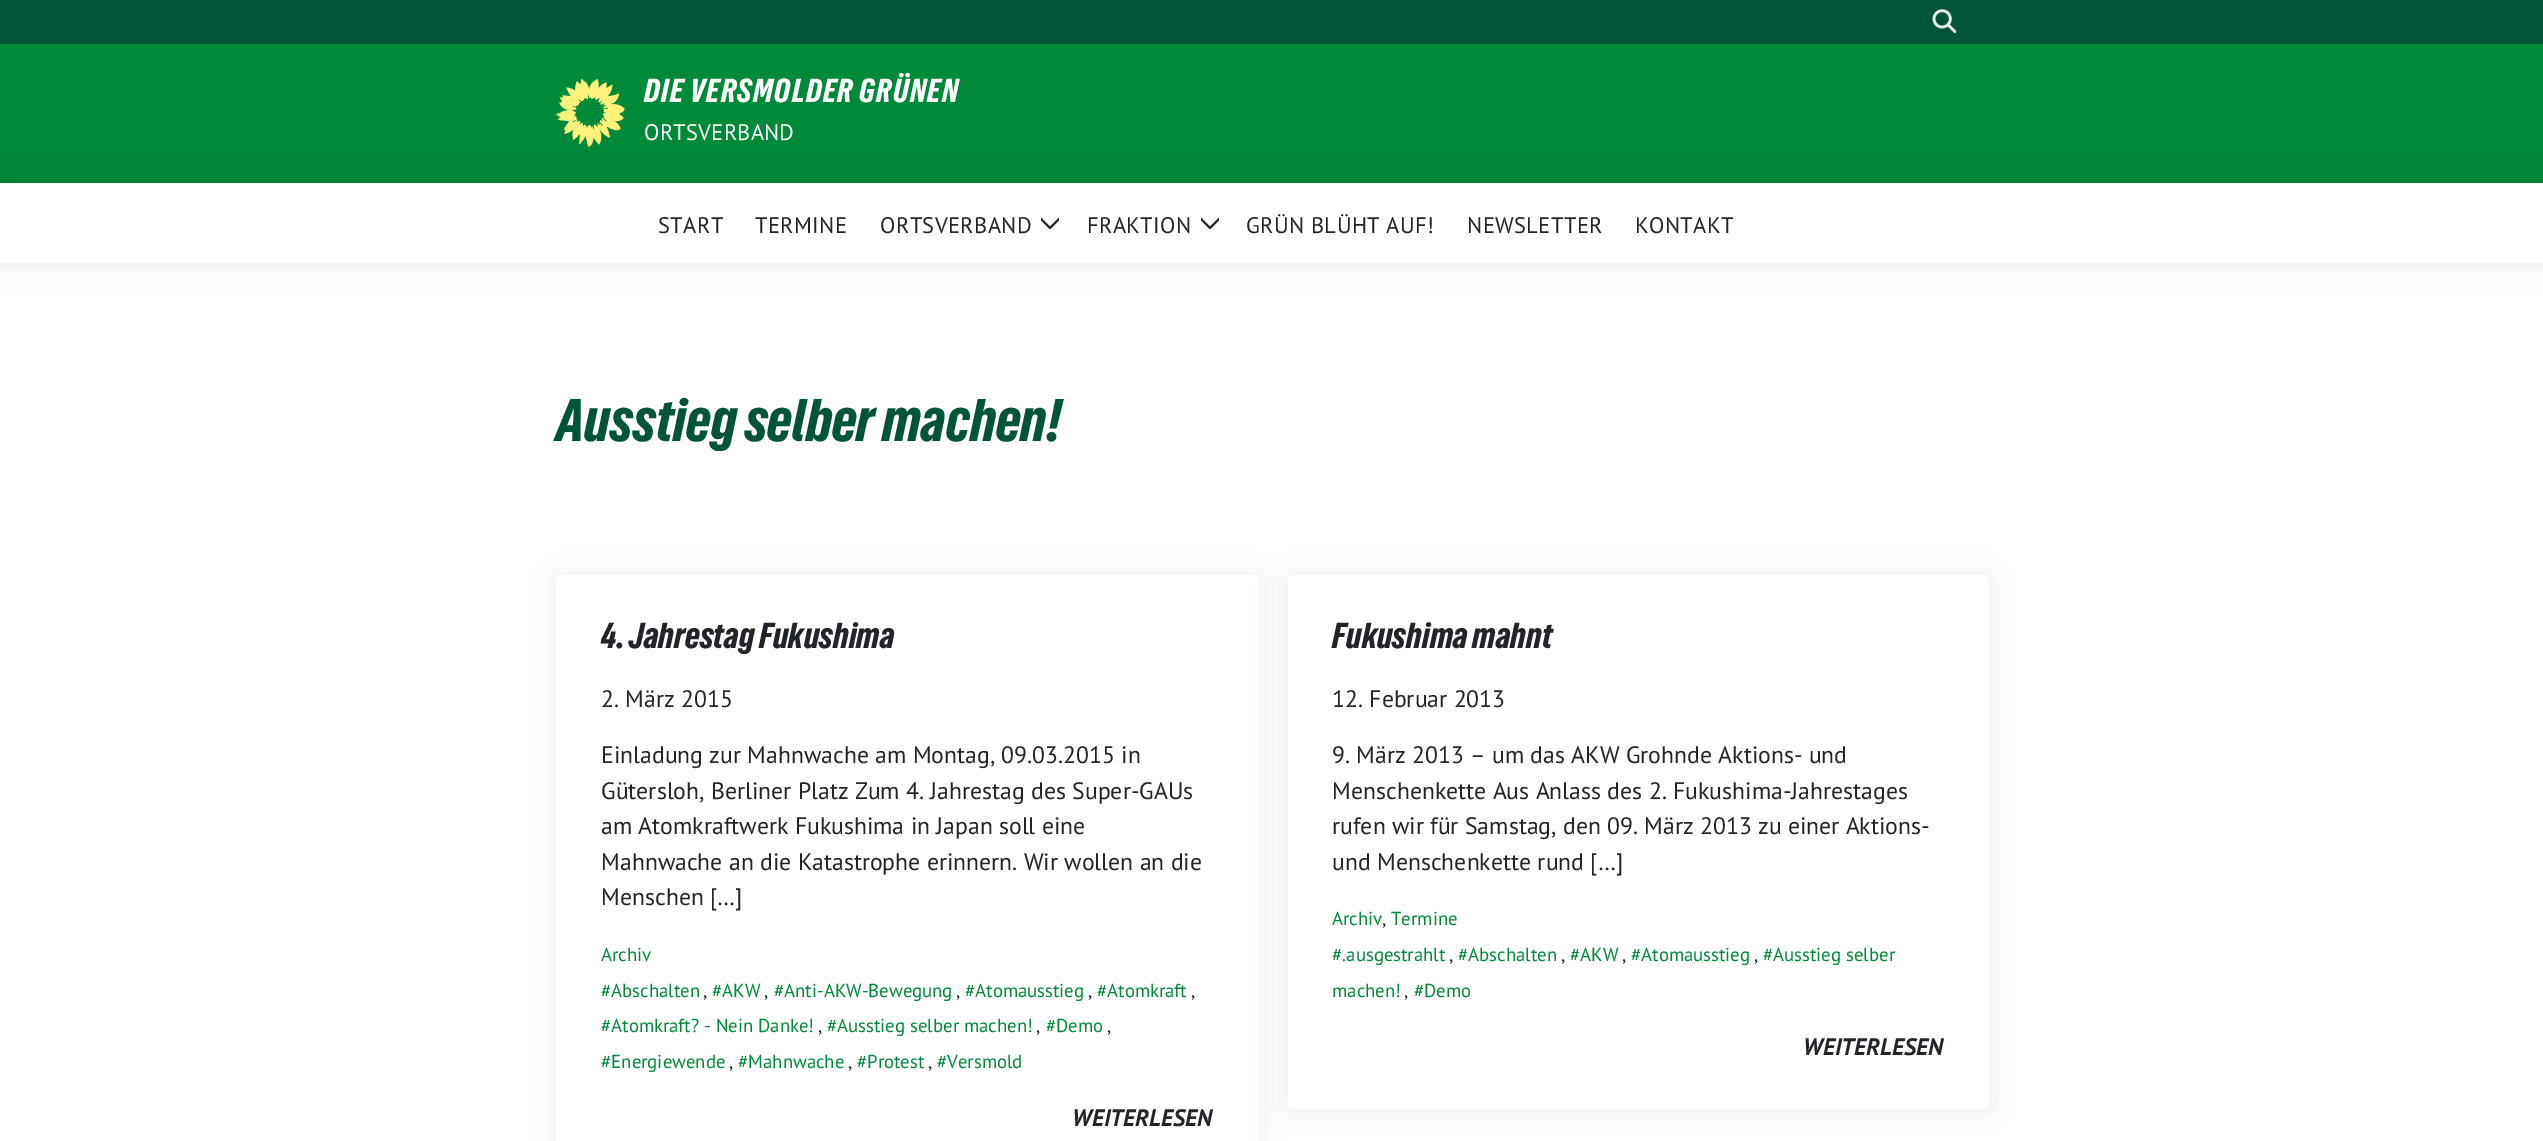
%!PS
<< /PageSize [2543 1141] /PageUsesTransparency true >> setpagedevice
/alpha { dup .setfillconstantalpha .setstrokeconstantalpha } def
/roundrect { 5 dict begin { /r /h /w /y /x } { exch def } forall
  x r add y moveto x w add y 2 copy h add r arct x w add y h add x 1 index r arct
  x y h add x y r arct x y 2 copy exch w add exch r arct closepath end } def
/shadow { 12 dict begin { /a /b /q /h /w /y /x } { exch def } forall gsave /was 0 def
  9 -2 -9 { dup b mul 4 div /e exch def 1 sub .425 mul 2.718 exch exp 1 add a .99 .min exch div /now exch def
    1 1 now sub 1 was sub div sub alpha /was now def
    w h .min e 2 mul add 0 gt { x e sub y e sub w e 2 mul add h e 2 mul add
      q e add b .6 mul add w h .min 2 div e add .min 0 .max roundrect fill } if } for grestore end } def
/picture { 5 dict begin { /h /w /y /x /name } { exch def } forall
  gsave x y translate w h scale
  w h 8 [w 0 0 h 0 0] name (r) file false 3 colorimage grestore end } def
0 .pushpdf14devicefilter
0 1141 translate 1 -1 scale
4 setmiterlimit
1 setgray
0 0 2543 1141 rectfill
0 0.329 0.216 setrgbcolor
0 0 2543 44 rectfill
(img1.rgb) 1932 9 25 24 picture
0 0.537 0.224 setrgbcolor
0 44 2543 139 rectfill
(img2.rgb) 556 79 69 69 picture
/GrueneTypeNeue-Regular [31.25 0 0 -31.25 0 0] selectfont
1 setgray
644 102 moveto 1.25 0 (DIE VERSMOLDER GRÜNEN) ashow
/PTSans-Regular [22.5 0 0 -22.5 0 0] selectfont
644 140 moveto 0.25 0 (ORTSVERBAND) ashow
0 setgray
0 184 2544 80 0 12.5 0.08 shadow
1 setgray
0 183 2543 80 rectfill
0.129 0.145 0.161 setrgbcolor
658 233 moveto 0.4 0 (START) ashow
755 233 moveto 0.4 0 (TERMINE) ashow
880 233 moveto 0.4 0 (ORTSVERBAND) ashow
gsave
1041 208 18 30 rectclip
1.9 setlinewidth
1 setlinecap
1 setlinejoin
newpath 1039 217 moveto 1050 228 lineto 1061 217 lineto stroke
grestore
1087 233 moveto 0.4 0 (FRAKTION) ashow
gsave
1201 208 18 30 rectclip
1.9 setlinewidth
1 setlinecap
1 setlinejoin
newpath 1199 217 moveto 1210 228 lineto 1221 217 lineto stroke
grestore
1246 233 moveto 0.4 0 (GRÜN BLÜHT AUF!) ashow
1467 233 moveto 0.4 0 (NEWSLETTER) ashow
1635 233 moveto 0.4 0 (KONTAKT) ashow
/GrueneTypeNeue-Regular [56.25 0 0 -56.25 0 0] selectfont
0 0.329 0.216 setrgbcolor
556 441 moveto (Ausstieg selber machen!) show
556 576 702 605 4 12.5 0.09 shadow
1 setgray
556 575 702 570 4 roundrect fill
/GrueneTypeNeue-Regular [33.75 0 0 -33.75 0 0] selectfont
0.129 0.145 0.161 setrgbcolor
601 648 moveto (4. Jahrestag Fukushima) show
/PTSans-Regular [23.75 0 0 -23.75 0 0] selectfont
601 707 moveto (2. März 2015) show
601 763 moveto (Einladung zur Mahnwache am Montag, 09.03.2015 in) show
601 799 moveto (Gütersloh, Berliner Platz Zum 4. Jahrestag des Super-GAUs) show
601 834 moveto (am Atomkraftwerk Fukushima in Japan soll eine) show
601 870 moveto (Mahnwache an die Katastrophe erinnern. Wir wollen an die) show
601 905 moveto (Menschen […]) show
/PTSans-Regular [18.75 0 0 -18.75 0 0] selectfont
0 0.537 0.224 setrgbcolor
601 961 moveto (Archiv) show
601 997 moveto (#Abschalten) show
0.129 0.145 0.161 setrgbcolor
703 997 moveto (,) show
0 0.537 0.224 setrgbcolor
712 997 moveto (#AKW) show
0.129 0.145 0.161 setrgbcolor
764 997 moveto (,) show
0 0.537 0.224 setrgbcolor
774 997 moveto (#Anti-AKW-Bewegung) show
0.129 0.145 0.161 setrgbcolor
956 997 moveto (,) show
0 0.537 0.224 setrgbcolor
965 997 moveto (#Atomausstieg) show
0.129 0.145 0.161 setrgbcolor
1088 997 moveto (,) show
0 0.537 0.224 setrgbcolor
1097 997 moveto (#Atomkraft) show
0.129 0.145 0.161 setrgbcolor
1191 997 moveto (,) show
0 0.537 0.224 setrgbcolor
601 1032 moveto (#Atomkraft? - Nein Danke!) show
0.129 0.145 0.161 setrgbcolor
818 1032 moveto (,) show
0 0.537 0.224 setrgbcolor
827 1032 moveto (#Ausstieg selber machen!) show
0.129 0.145 0.161 setrgbcolor
1036 1032 moveto (,) show
0 0.537 0.224 setrgbcolor
1046 1032 moveto (#Demo) show
0.129 0.145 0.161 setrgbcolor
1107 1032 moveto (,) show
0 0.537 0.224 setrgbcolor
601 1068 moveto (#Energiewende) show
0.129 0.145 0.161 setrgbcolor
729 1068 moveto (,) show
0 0.537 0.224 setrgbcolor
738 1068 moveto (#Mahnwache) show
0.129 0.145 0.161 setrgbcolor
848 1068 moveto (,) show
0 0.537 0.224 setrgbcolor
857 1068 moveto (#Protest) show
0.129 0.145 0.161 setrgbcolor
928 1068 moveto (,) show
0 0.537 0.224 setrgbcolor
937 1068 moveto (#Versmold) show
/PTSans-BoldItalic [23.75 0 0 -23.75 0 0] selectfont
0.129 0.145 0.161 setrgbcolor
1072 1126 moveto (WEITERLESEN) show
0 0.329 0.216 setrgbcolor
1288 576 701 534 4 12.5 0.09 shadow
1 setgray
1288 575 701 534 4 roundrect fill
/GrueneTypeNeue-Regular [33.75 0 0 -33.75 0 0] selectfont
0.129 0.145 0.161 setrgbcolor
1332 648 moveto (Fukushima mahnt) show
/PTSans-Regular [23.75 0 0 -23.75 0 0] selectfont
1332 707 moveto (12. Februar 2013) show
1332 763 moveto (9. März 2013 – um das AKW Grohnde Aktions- und) show
1332 799 moveto (Menschenkette Aus Anlass des 2. Fukushima-Jahrestages) show
1332 834 moveto (rufen wir für Samstag, den 09. März 2013 zu einer Aktions-) show
1332 870 moveto (und Menschenkette rund […]) show
/PTSans-Regular [18.75 0 0 -18.75 0 0] selectfont
0 0.537 0.224 setrgbcolor
1332 925 moveto (Archiv) show
0.129 0.145 0.161 setrgbcolor
1382 925 moveto (,) show
0 0.537 0.224 setrgbcolor
1391 925 moveto (Termine) show
1332 961 moveto (#.ausgestrahlt) show
0.129 0.145 0.161 setrgbcolor
1449 961 moveto (,) show
0 0.537 0.224 setrgbcolor
1458 961 moveto (#Abschalten) show
0.129 0.145 0.161 setrgbcolor
1561 961 moveto (,) show
0 0.537 0.224 setrgbcolor
1570 961 moveto (#AKW) show
0.129 0.145 0.161 setrgbcolor
1622 961 moveto (,) show
0 0.537 0.224 setrgbcolor
1631 961 moveto (#Atomausstieg) show
0.129 0.145 0.161 setrgbcolor
1754 961 moveto (,) show
0 0.537 0.224 setrgbcolor
1763 961 moveto (#Ausstieg selber) show
1332 997 moveto (machen!) show
0.129 0.145 0.161 setrgbcolor
1404 997 moveto (,) show
0 0.537 0.224 setrgbcolor
1414 997 moveto (#Demo) show
/PTSans-BoldItalic [23.75 0 0 -23.75 0 0] selectfont
0.129 0.145 0.161 setrgbcolor
1803 1055 moveto (WEITERLESEN) show
.poppdf14devicefilter showpage
